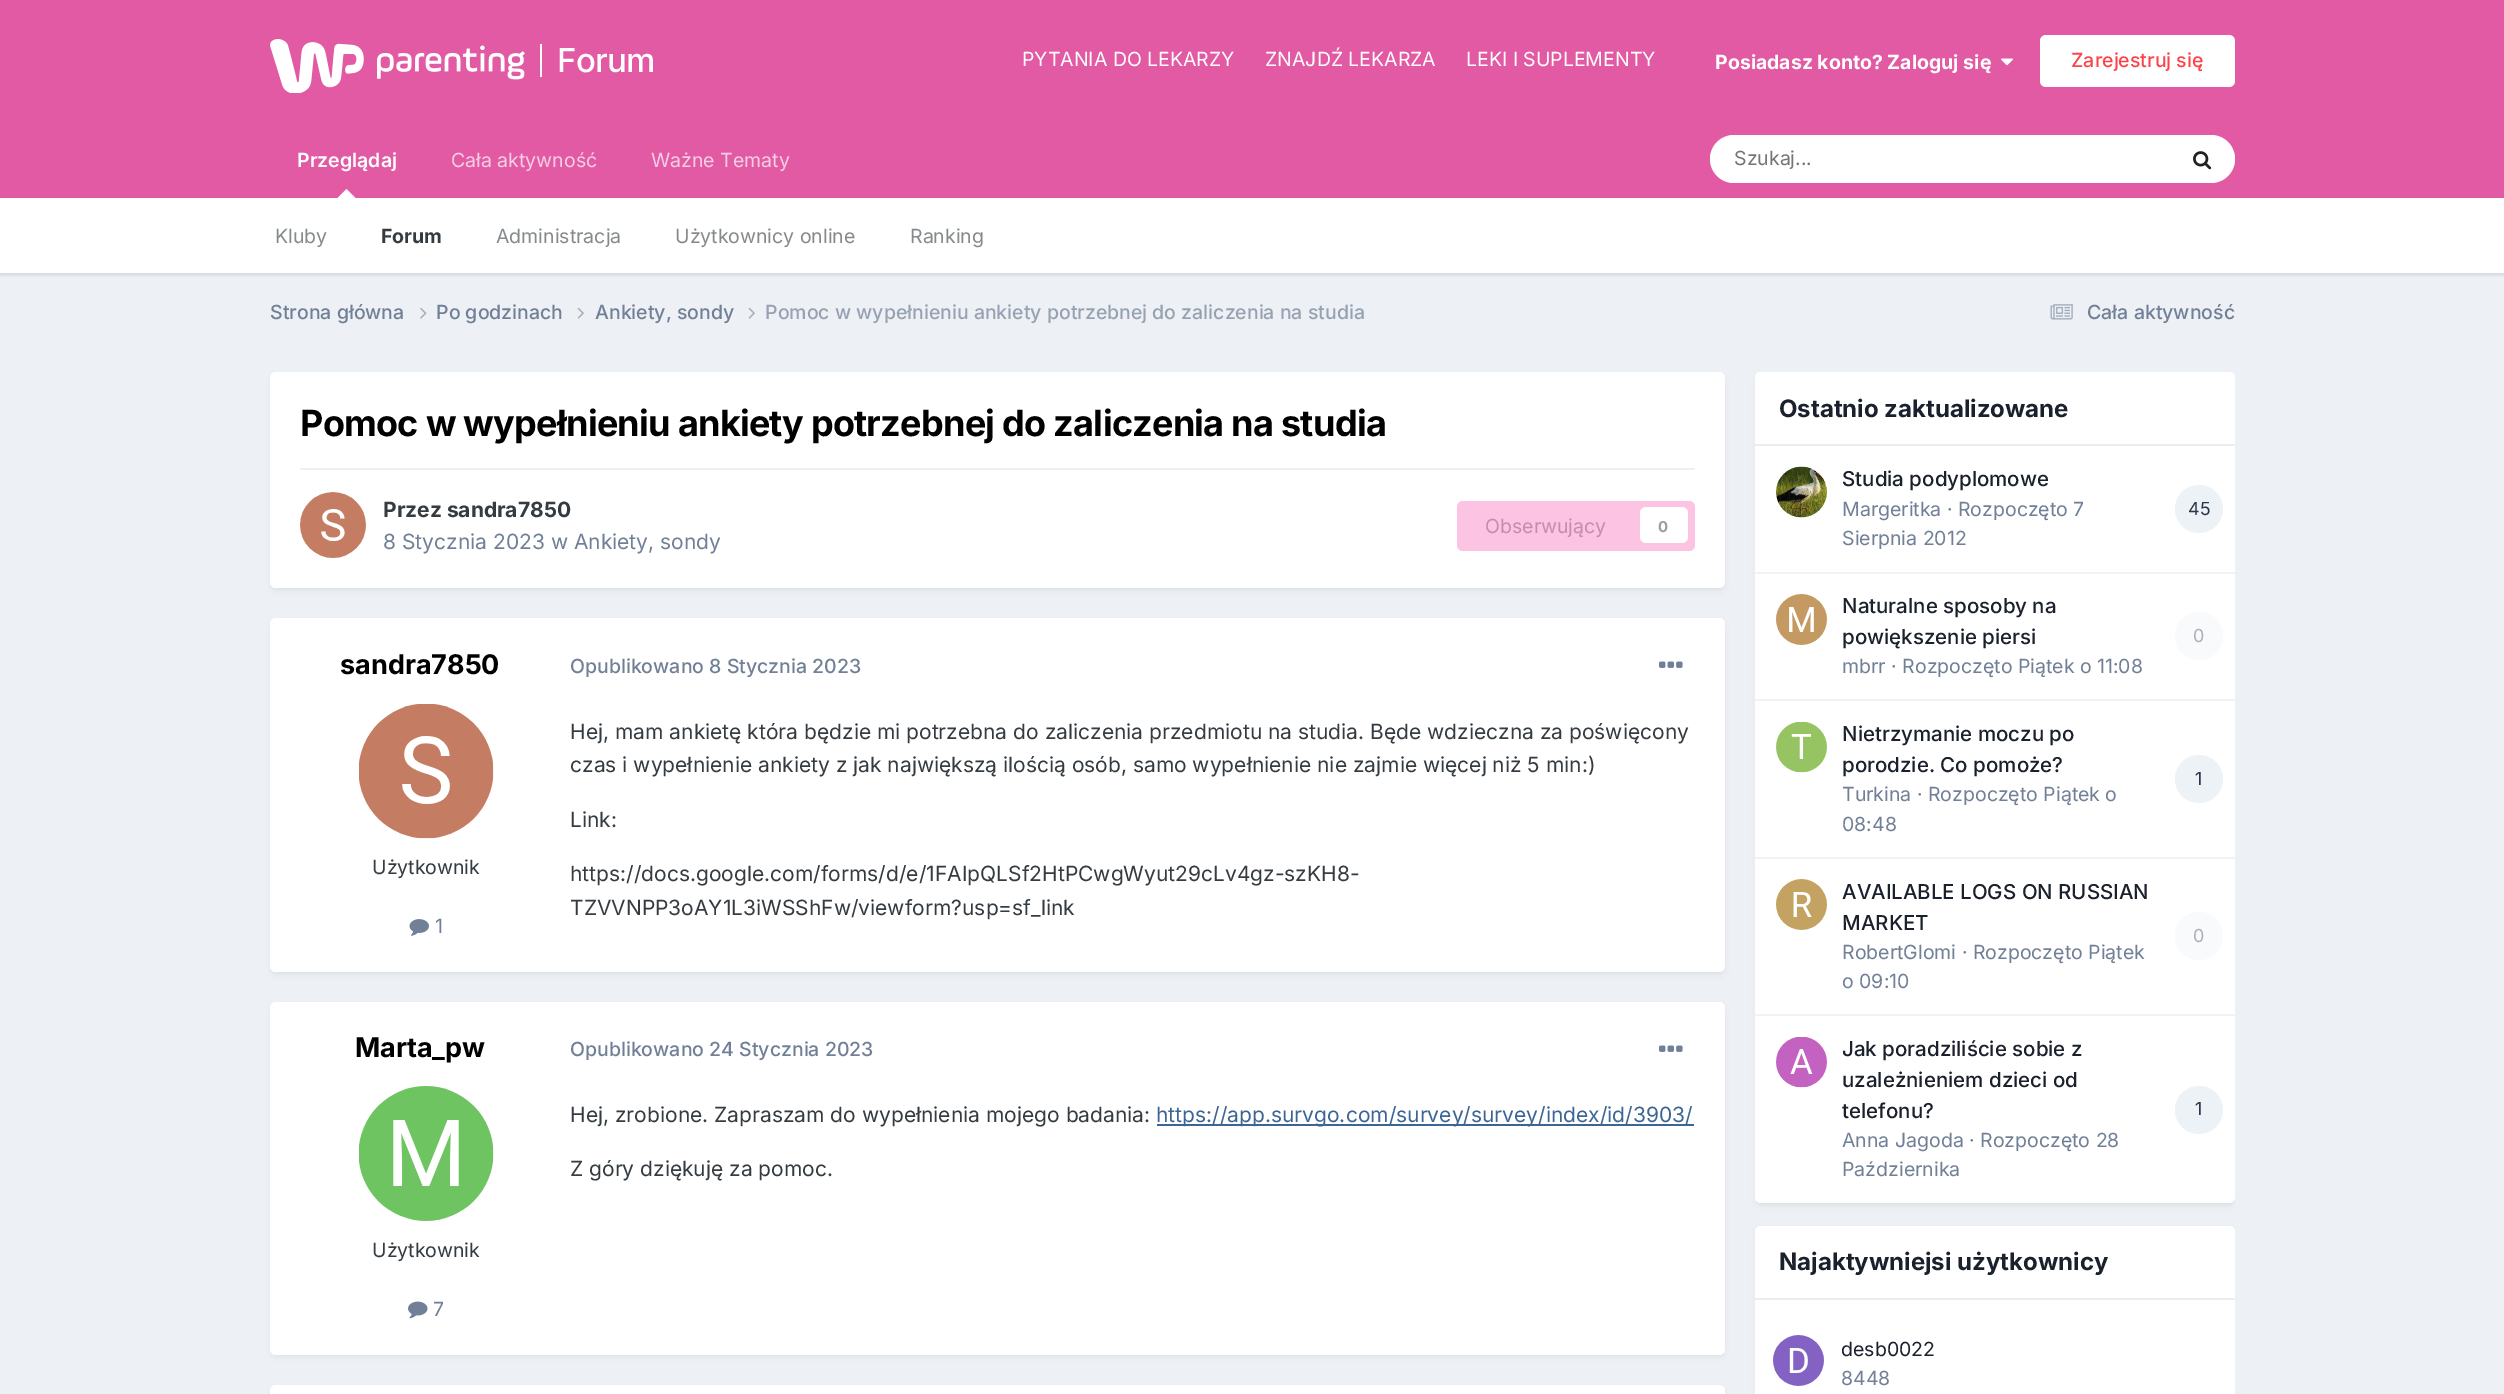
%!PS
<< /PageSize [2504 1394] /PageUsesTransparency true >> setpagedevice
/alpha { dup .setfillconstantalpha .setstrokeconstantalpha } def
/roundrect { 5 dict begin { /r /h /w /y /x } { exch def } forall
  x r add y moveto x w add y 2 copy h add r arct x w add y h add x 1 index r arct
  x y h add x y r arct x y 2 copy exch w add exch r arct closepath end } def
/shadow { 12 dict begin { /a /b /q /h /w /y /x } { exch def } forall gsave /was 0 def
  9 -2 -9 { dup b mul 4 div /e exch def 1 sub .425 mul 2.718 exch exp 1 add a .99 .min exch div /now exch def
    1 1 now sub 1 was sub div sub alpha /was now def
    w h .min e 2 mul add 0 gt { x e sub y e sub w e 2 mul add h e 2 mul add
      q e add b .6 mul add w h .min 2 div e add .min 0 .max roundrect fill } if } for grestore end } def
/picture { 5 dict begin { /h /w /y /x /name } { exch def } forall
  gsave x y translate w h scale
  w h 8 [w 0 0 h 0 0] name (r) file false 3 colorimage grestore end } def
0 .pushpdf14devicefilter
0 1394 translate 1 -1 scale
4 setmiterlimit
0.929 0.941 0.957 setrgbcolor
0 0 2504 1394 rectfill
0.882 0.353 0.639 setrgbcolor
0 0 2504 198 rectfill
(img1.rgb) 270 39 255 54 picture
1 setgray
540 44 2 33 rectfill
/Inter-Medium [33 0 0 -33 0 0] selectfont
557 72 moveto -0.75 0 (Forum) ashow
/Inter-Regular [19.5 0 0 -19.5 0 0] selectfont
1022 66 moveto (PYTANIA DO LEKARZY) show
1265 66 moveto (ZNAJDŹ LEKARZA) show
1466 66 moveto (LEKI I SUPLEMENTY) show
/Inter-Bold [19.5 0 0 -19.5 0 0] selectfont
1715 69 moveto (Posiadasz konto? Zaloguj się) show
(img2.rgb) 2001 58 12 8 picture
2040 35 195 52 6 roundrect fill
/Inter-Medium [19.5 0 0 -19.5 0 0] selectfont
0.988 0.263 0.294 setrgbcolor
2071 67 moveto (Zarejestruj się) show
/Inter-SemiBold [19.5 0 0 -19.5 0 0] selectfont
1 setgray
297 167 moveto (Przeglądaj) show
0 setgray
0 200 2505 75 0 1.5 0.1 shadow
1 setgray
newpath 355.5 198 moveto 337.5 198 lineto 346.5 189 lineto closepath fill
0 198 2504 75 rectfill
/Inter-Regular [19.5 0 0 -19.5 0 0] selectfont
0.525 0.541 0.553 setrgbcolor
275 243 moveto (Kluby) show
/Inter-Bold [19.5 0 0 -19.5 0 0] selectfont
0.208 0.235 0.255 setrgbcolor
381 243 moveto (Forum) show
/Inter-Regular [19.5 0 0 -19.5 0 0] selectfont
0.525 0.541 0.553 setrgbcolor
496 243 moveto (Administracja) show
675 243 moveto (Użytkownicy online) show
910 243 moveto (Ranking) show
0.965 0.808 0.89 setrgbcolor
451 167 moveto (Cała aktywność) show
651 167 moveto (Ważne Tematy) show
1 setgray
1710 135 525 48 24 roundrect fill
0.459 setgray
1734 165 moveto (Szukaj...) show
(img3.rgb) 2193 151 19 19 picture
/Inter-Medium [19.5 0 0 -19.5 0 0] selectfont
0.443 0.502 0.588 setrgbcolor
270 319 moveto (Strona główna) show
(img4.rgb) 420 308 7 11 picture
436 319 moveto (Po godzinach) show
(img5.rgb) 577 307 7 12 picture
595 319 moveto (Ankiety, sondy) show
(img5.rgb) 748 307 7 12 picture
0.588 0.635 0.698 setrgbcolor
765 319 moveto (Pomoc w wypełnieniu ankiety potrzebnej do zaliczenia na studia) show
(img6.rgb) 2050 304 23 16 picture
0.443 0.502 0.588 setrgbcolor
2087 319 moveto (Cała aktywność) show
0.176 0.216 0.282 setrgbcolor
272 377 1452 213 5 3 0.1 shadow
1 setgray
270 372 1455 216 6 roundrect fill
/Inter-Bold [36 0 0 -36 0 0] selectfont
0 setgray
300 436 moveto -0.72 0 (Pomoc w wypełnieniu ankiety potrzebnej do zaliczenia na studia) ashow
0.937 0.937 0.941 setrgbcolor
300 468 1395 2 rectfill
(img7.rgb) 300 492 66 66 picture
/Inter-Bold [21 0 0 -21 0 0] selectfont
0.208 0.235 0.255 setrgbcolor
383 517 moveto (Przez sandra7850) show
/Inter-Regular [21 0 0 -21 0 0] selectfont
0.443 0.502 0.588 setrgbcolor
383 549 moveto (8 Stycznia 2023 w Ankiety, sondy) show
0.988 0.769 0.886 setrgbcolor
1457 501 238 50 6 roundrect fill
/Inter-Regular [19.5 0 0 -19.5 0 0] selectfont
0.769 0.557 0.671 setrgbcolor
1485 533 moveto (Obserwujący) show
1 setgray
1640 507 48 36 6 roundrect fill
/Inter-Bold [15 0 0 -15 0 0] selectfont
0.604 0.62 0.627 setrgbcolor
1658 532 moveto (0) show
0.176 0.216 0.282 setrgbcolor
272 623 1452 351 5 3 0.1 shadow
1 setgray
270 618 1455 354 6 roundrect fill
/Inter-Bold [27 0 0 -27 0 0] selectfont
0 setgray
340 674 moveto (sandra7850) show
(img8.rgb) 359 704 135 135 picture
/Inter-Regular [19.5 0 0 -19.5 0 0] selectfont
0.208 0.235 0.255 setrgbcolor
372 874 moveto (Użytkownik) show
(img9.rgb) 409 919 20 17 picture
0.443 0.502 0.588 setrgbcolor
435 933 moveto (1) show
/Inter-Medium [19.5 0 0 -19.5 0 0] selectfont
570 673 moveto (Opublikowano 8 Stycznia 2023) show
(img10.rgb) 1659 661 24 7 picture
/Inter-Regular [21 0 0 -21 0 0] selectfont
0.208 0.235 0.255 setrgbcolor
570 739 moveto (Hej, mam ankietę która będzie mi potrzebna do zaliczenia przedmiotu na studia. Będe wdzieczna za poświęcony) show
570 772 moveto (czas i wypełnienie ankiety z jak największą ilością osób, samo wypełnienie nie zajmie więcej niż 5 min:\)) show
570 827 moveto (Link:) show
570 881 moveto (https://docs.google.com/forms/d/e/1FAIpQLSf2HtPCwgWyut29cLv4gz-szKH8-) show
570 915 moveto (TZVVNPP3oAY1L3iWSShFw/viewform?usp=sf_link) show
0.176 0.216 0.282 setrgbcolor
272 1007 1452 349 5 3 0.1 shadow
1 setgray
270 1002 1455 353 6 roundrect fill
/Inter-Bold [27 0 0 -27 0 0] selectfont
0 setgray
355 1057 moveto (Marta_pw) show
(img11.rgb) 359 1086 135 135 picture
/Inter-Regular [19.5 0 0 -19.5 0 0] selectfont
0.208 0.235 0.255 setrgbcolor
372 1257 moveto (Użytkownik) show
(img12.rgb) 408 1301 20 18 picture
0.443 0.502 0.588 setrgbcolor
433 1316 moveto (7) show
/Inter-Medium [19.5 0 0 -19.5 0 0] selectfont
570 1056 moveto (Opublikowano 24 Stycznia 2023) show
(img10.rgb) 1659 1045 24 7 picture
/Inter-Regular [21 0 0 -21 0 0] selectfont
0.208 0.235 0.255 setrgbcolor
570 1122 moveto (Hej, zrobione. Zapraszam do wypełnienia mojego badania:) show
0.239 0.396 0.58 setrgbcolor
1157 1124 537 2 rectfill
1156 1122 moveto (https://app.survgo.com/survey/survey/index/id/3903/) show
0.208 0.235 0.255 setrgbcolor
570 1176 moveto (Z góry dziękuję za pomoc.) show
0.176 0.216 0.282 setrgbcolor
272 1389 1452 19 5 3 0.1 shadow
1 setgray
270 1385 1455 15 6 roundrect fill
gsave
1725 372 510 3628 rectclip
0.176 0.216 0.282 setrgbcolor
1757 377 477 828 5 3 0.1 shadow
grestore
1755 372 480 831 6 roundrect fill
newpath 1761 372 moveto 2229 372 lineto 2232.5 372 2235 374.5 2235 378 curveto 2235 446 lineto 1755 446 lineto 1755 378 lineto 1755 374.5 1757.5 372 1761 372 curveto closepath fill
0.918 0.925 0.937 setrgbcolor
1755 444 480 2 rectfill
/Inter-Bold [24 0 0 -24 0 0] selectfont
0.102 0.125 0.173 setrgbcolor
1779 417 moveto (Ostatnio zaktualizowane) show
0.945 0.949 0.961 setrgbcolor
1755 572 480 2 rectfill
(img13.rgb) 1776 466 51 52 picture
/Inter-Medium [20.5 0 0 -20.5 0 0] selectfont
0.102 0.125 0.173 setrgbcolor
1842 486 moveto (Studia podyplomowe) show
/Inter-Regular [19.5 0 0 -19.5 0 0] selectfont
0.443 0.502 0.588 setrgbcolor
1842 516 moveto (Margeritka · Rozpoczęto 7) show
1842 545 moveto (Sierpnia 2012) show
0.929 0.949 0.969 setrgbcolor
newpath 2199 509 24 0 360 arc closepath fill
/Inter-Regular [18 0 0 -18 0 0] selectfont
0.176 0.216 0.282 setrgbcolor
2188 515 moveto (45) show
0.945 0.949 0.961 setrgbcolor
1755 699 480 2 rectfill
(img14.rgb) 1776 594 51 51 picture
/Inter-Medium [20.5 0 0 -20.5 0 0] selectfont
0.102 0.125 0.173 setrgbcolor
1842 613 moveto (Naturalne sposoby na) show
1842 644 moveto (powiększenie piersi) show
0.973 0.98 0.988 setrgbcolor
newpath 2199 636 24 0 360 arc closepath fill
/Inter-Regular [18 0 0 -18 0 0] selectfont
0.671 0.686 0.714 setrgbcolor
2193 642 moveto (0) show
/Inter-Regular [19.5 0 0 -19.5 0 0] selectfont
0.443 0.502 0.588 setrgbcolor
1842 673 moveto (mbrr · Rozpoczęto Piątek o 11:08) show
0.945 0.949 0.961 setrgbcolor
1755 857 480 2 rectfill
(img15.rgb) 1776 722 51 51 picture
/Inter-Medium [20.5 0 0 -20.5 0 0] selectfont
0.102 0.125 0.173 setrgbcolor
1842 741 moveto (Nietrzymanie moczu po) show
1842 772 moveto (porodzie. Co pomoże?) show
0.929 0.949 0.969 setrgbcolor
newpath 2199 779 24 0 360 arc closepath fill
/Inter-Regular [18 0 0 -18 0 0] selectfont
0.176 0.216 0.282 setrgbcolor
2195 785 moveto (1) show
/Inter-Regular [19.5 0 0 -19.5 0 0] selectfont
0.443 0.502 0.588 setrgbcolor
1842 801 moveto (Turkina · Rozpoczęto Piątek o) show
1842 831 moveto (08:48) show
0.945 0.949 0.961 setrgbcolor
1755 1014 480 2 rectfill
(img16.rgb) 1776 879 51 51 picture
/Inter-Medium [20.5 0 0 -20.5 0 0] selectfont
0.102 0.125 0.173 setrgbcolor
1842 899 moveto (AVAILABLE LOGS ON RUSSIAN) show
1842 930 moveto (MARKET) show
0.973 0.98 0.988 setrgbcolor
newpath 2199 936 24 0 360 arc closepath fill
/Inter-Regular [18 0 0 -18 0 0] selectfont
0.671 0.686 0.714 setrgbcolor
2193 942 moveto (0) show
/Inter-Regular [19.5 0 0 -19.5 0 0] selectfont
0.443 0.502 0.588 setrgbcolor
1842 959 moveto (RobertGlomi · Rozpoczęto Piątek) show
1842 988 moveto (o 09:10) show
(img17.rgb) 1776 1037 51 51 picture
/Inter-Medium [20.5 0 0 -20.5 0 0] selectfont
0.102 0.125 0.173 setrgbcolor
1842 1056 moveto (Jak poradziliście sobie z) show
1842 1087 moveto (uzależnieniem dzieci od) show
1842 1118 moveto (telefonu?) show
0.929 0.949 0.969 setrgbcolor
newpath 2199 1110 24 0 360 arc closepath fill
/Inter-Regular [18 0 0 -18 0 0] selectfont
0.176 0.216 0.282 setrgbcolor
2195 1115 moveto (1) show
/Inter-Regular [19.5 0 0 -19.5 0 0] selectfont
0.443 0.502 0.588 setrgbcolor
1842 1147 moveto (Anna Jagoda · Rozpoczęto 28) show
1842 1176 moveto (Października) show
gsave
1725 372 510 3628 rectclip
0.176 0.216 0.282 setrgbcolor
1757 1230 477 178 5 3 0.1 shadow
grestore
1 setgray
1755 1226 480 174 6 roundrect fill
newpath 1761 1226 moveto 2229 1226 lineto 2232.5 1226 2235 1228.5 2235 1232 curveto 2235 1299 lineto 1755 1299 lineto 1755 1232 lineto 1755 1228.5 1757.5 1226 1761 1226 curveto closepath fill
0.918 0.925 0.937 setrgbcolor
1755 1298 480 2 rectfill
/Inter-Bold [24 0 0 -24 0 0] selectfont
0.102 0.125 0.173 setrgbcolor
1779 1270 moveto (Najaktywniejsi użytkownicy) show
(img18.rgb) 1773 1335 51 51 picture
/Inter-Regular [19.5 0 0 -19.5 0 0] selectfont
1841 1356 moveto (desb0022) show
0.443 0.502 0.588 setrgbcolor
1841 1385 moveto (8448) show
.poppdf14devicefilter showpage
